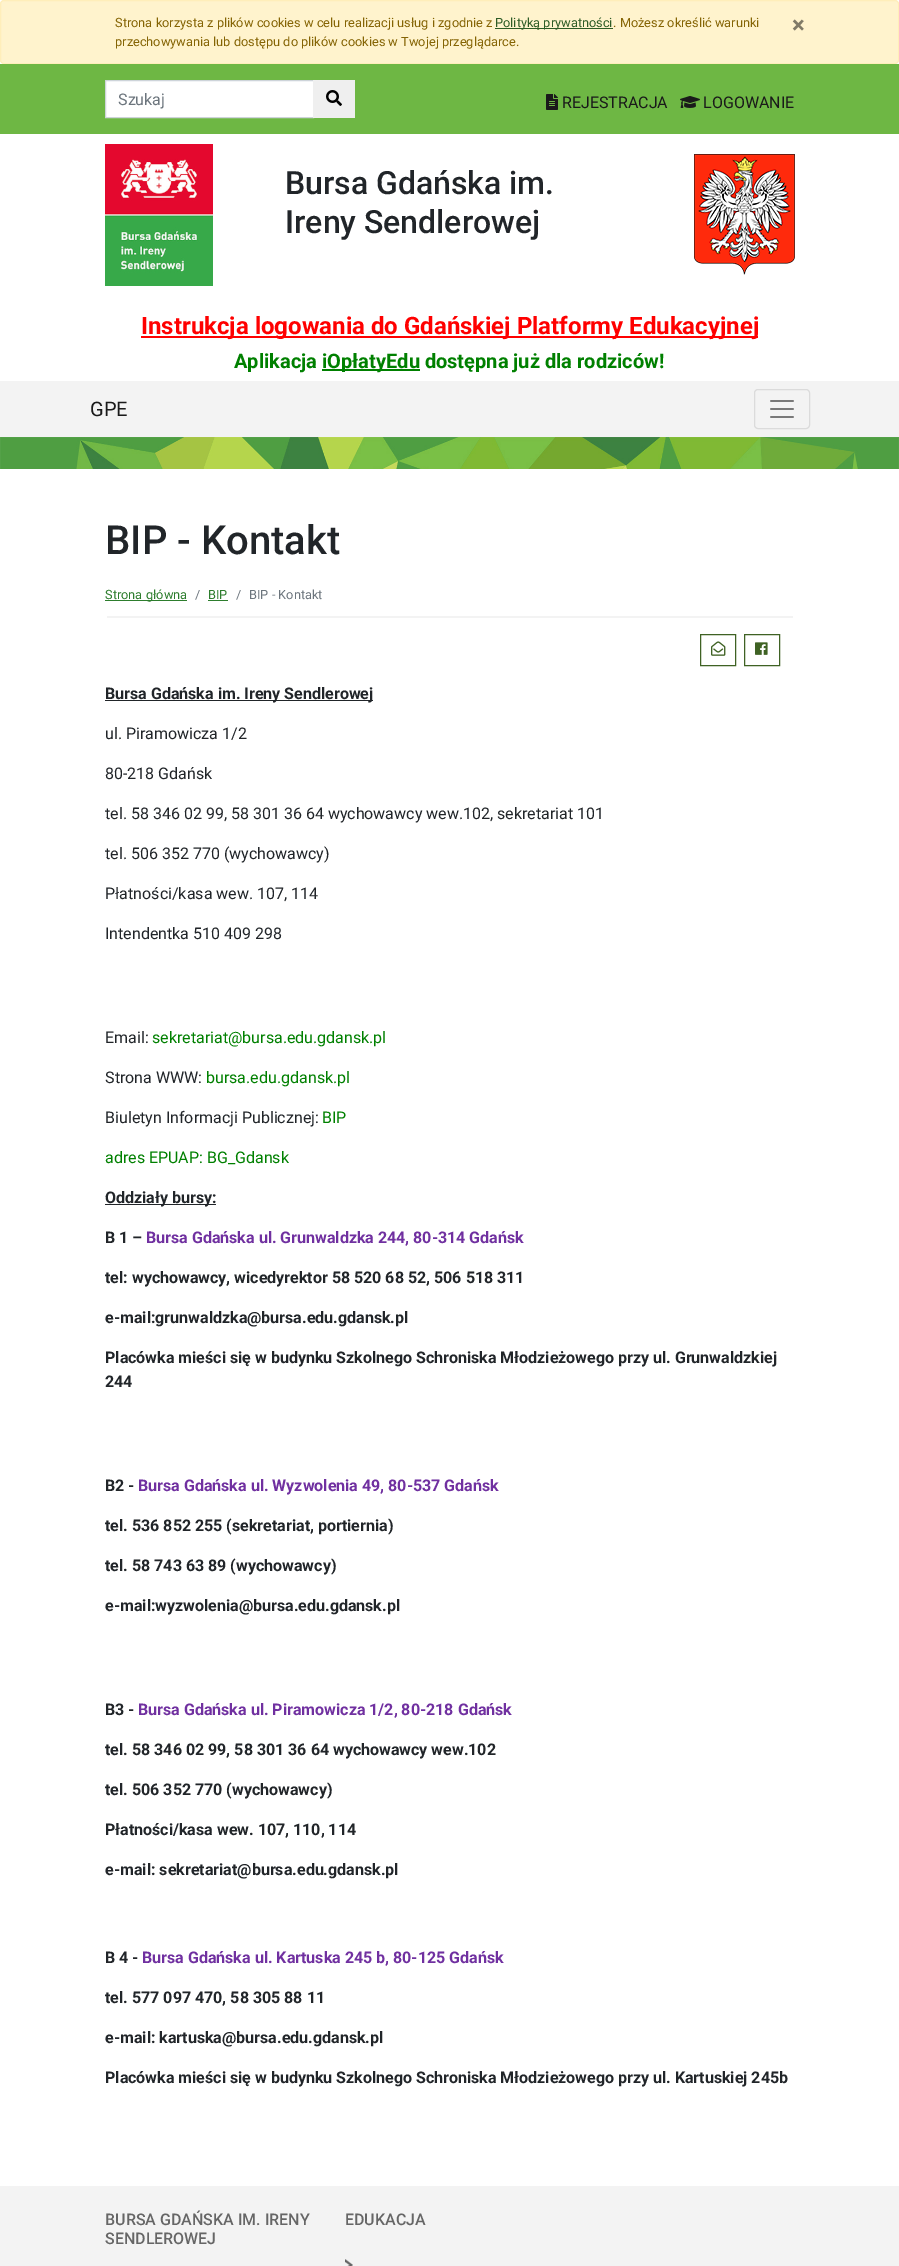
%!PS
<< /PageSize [899 2266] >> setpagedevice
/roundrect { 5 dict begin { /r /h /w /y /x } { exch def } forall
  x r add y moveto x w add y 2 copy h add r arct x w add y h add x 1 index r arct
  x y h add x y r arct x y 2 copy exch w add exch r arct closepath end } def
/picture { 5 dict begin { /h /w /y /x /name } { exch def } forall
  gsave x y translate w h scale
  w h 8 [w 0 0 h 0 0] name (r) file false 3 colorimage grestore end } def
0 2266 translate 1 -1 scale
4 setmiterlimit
1 setgray
0 0 899 2266 rectfill
1 0.953 0.804 setrgbcolor
0.5 0.5 898 63 3.5 roundrect gsave fill grestore
1 0.933 0.729 setrgbcolor
stroke
/Roboto-Regular [12.8 0 0 -12.8 0 0] selectfont
0.522 0.392 0.016 setrgbcolor
115 27 moveto (Strona korzysta z plików cookies w celu realizacji usług i zgodnie z) show
0.18 0.361 0.149 setrgbcolor
495 28 118 1 rectfill
495 27 moveto (Polityką prywatności) show
0.522 0.392 0.016 setrgbcolor
613 27 moveto (. Możesz określić warunki) show
/Roboto-Bold [24 0 0 -24 0 0] selectfont
0.502 0.478 0.404 setrgbcolor
792 33 moveto (×) show
/Roboto-Regular [12.8 0 0 -12.8 0 0] selectfont
0.522 0.392 0.016 setrgbcolor
115 46 moveto (przechowywania lub dostępu do plików cookies w Twojej przeglądarce.) show
0.431 0.718 0.267 setrgbcolor
0 64 899 70 rectfill
1 setgray
newpath 105.5 80.5 moveto 313.5 80.5 lineto 313.5 117.5 lineto 105.5 117.5 lineto closepath gsave fill grestore
0.808 0.831 0.855 setrgbcolor
stroke
/Roboto-Regular [16 0 0 -16 0 0] selectfont
0.424 0.459 0.49 setrgbcolor
118 105 moveto (Szukaj) show
0.937 setgray
313 80 42 38 rectfill
(img1.rgb) 326 90 16 16 picture
(img2.rgb) 546 94 12 16 picture
0.102 setgray
562 108 moveto (REJESTRACJA) show
(img3.rgb) 680 96 20 12 picture
703 108 moveto (LOGOWANIE) show
(img4.rgb) 105 144 108 142 picture
/Roboto-Medium [32 0 0 -32 0 0] selectfont
0.129 0.145 0.161 setrgbcolor
285 194 moveto (Bursa Gdańska im.) show
285 233 moveto (Ireny Sendlerowej) show
(img5.rgb) 694 154 101 121 picture
1 0 0 setrgbcolor
141 336 617 2 rectfill
/Roboto-Bold [24 0 0 -24 0 0] selectfont
141 334 moveto (Instrukcja logowania do Gdańskiej Platformy Edukacyjnej) show
/Roboto-Bold [20 0 0 -20 0 0] selectfont
0 0.502 0 setrgbcolor
234 368 moveto (Aplikacja) show
322 369 98 2 rectfill
322 368 moveto (iOpłatyEdu dostępna już dla rodziców!) show
0.953 setgray
0 381 899 56 rectfill
/Roboto-Regular [20 0 0 -20 0 0] selectfont
0.102 setgray
90 416 moveto (GPE) show
0.859 setgray
754.5 389.5 55 39 3.5 roundrect stroke
(img6.rgb) 770 400 24 18 picture
(img7.rgb) 0 437 899 32 picture
/Roboto-Medium [40 0 0 -40 0 0] selectfont
0.129 0.145 0.161 setrgbcolor
105 554 moveto (BIP - Kontakt) show
0.953 setgray
107 616 686 2 rectfill
0.176 0.49 0.176 setrgbcolor
105 600 82 1 rectfill
/Roboto-Regular [12.8 0 0 -12.8 0 0] selectfont
105 599 moveto (Strona główna) show
0.424 0.459 0.49 setrgbcolor
195 599 moveto (/) show
0.176 0.49 0.176 setrgbcolor
208 599 moveto (BIP) show
208 600 20 1 rectfill
0.424 0.459 0.49 setrgbcolor
236 599 moveto (/) show
249 599 moveto (BIP - Kontakt) show
0.247 0.384 0.141 setrgbcolor
700.5 634.5 35 31 rectstroke
(img8.rgb) 711 641 15 15 picture
744.5 634.5 35 31 rectstroke
(img9.rgb) 755 642 13 13 picture
0.129 0.145 0.161 setrgbcolor
105 700 268 1 rectfill
/Roboto-Bold [16 0 0 -16 0 0] selectfont
105 699 moveto (Bursa Gdańska im. Ireny Sendlerowej) show
/Roboto-Regular [16 0 0 -16 0 0] selectfont
105 739 moveto (ul. Piramowicza 1/2) show
105 779 moveto (80-218 Gdańsk) show
105 819 moveto (tel. 58 346 02 99, 58 301 36 64 wychowawcy wew.102, sekretariat 101) show
105 859 moveto (tel. 506 352 770 \(wychowawcy\)) show
105 899 moveto (Płatności/kasa wew. 107, 114) show
105 939 moveto (Intendentka 510 409 298) show
105 1043 moveto (Email:) show
0 0.502 0 setrgbcolor
152 1043 moveto (sekretariat@bursa.edu.gdansk.pl) show
0.129 0.145 0.161 setrgbcolor
105 1083 moveto (Strona WWW:) show
0 0.502 0 setrgbcolor
206 1083 moveto (bursa.edu.gdansk.pl) show
0.129 0.145 0.161 setrgbcolor
105 1123 moveto (Biuletyn Informacji Publicznej:) show
0 0.502 0 setrgbcolor
322 1123 moveto (BIP) show
105 1163 moveto (adres EPUAP: BG_Gdansk) show
0.129 0.145 0.161 setrgbcolor
105 1204 111 1 rectfill
/Roboto-Bold [16 0 0 -16 0 0] selectfont
105 1203 moveto (Oddziały bursy:) show
105 1243 moveto (B 1 –) show
0.439 0.188 0.627 setrgbcolor
146 1243 moveto (Bursa Gdańska ul. Grunwaldzka 244, 80-314 Gdańsk) show
0.129 0.145 0.161 setrgbcolor
105 1283 moveto (tel: wychowawcy, wicedyrektor 58 520 68 52, 506 518 311) show
105 1323 moveto (e-mail:grunwaldzka@bursa.edu.gdansk.pl) show
105 1363 moveto (Placówka mieści się w budynku Szkolnego Schroniska Młodzieżowego przy ul. Grunwaldzkiej) show
105 1387 moveto (244) show
105 1491 moveto (B2 -) show
0.439 0.188 0.627 setrgbcolor
138 1491 moveto (Bursa Gdańska ul. Wyzwolenia 49, 80-537 Gdańsk) show
0.129 0.145 0.161 setrgbcolor
105 1531 moveto (tel. 536 852 255 \(sekretariat, portiernia\)) show
105 1571 moveto (tel. 58 743 63 89 \(wychowawcy\)) show
105 1611 moveto (e-mail:wyzwolenia@bursa.edu.gdansk.pl) show
105 1715 moveto (B3 -) show
0.439 0.188 0.627 setrgbcolor
138 1715 moveto (Bursa Gdańska ul. Piramowicza 1/2, 80-218 Gdańsk) show
0.129 0.145 0.161 setrgbcolor
105 1755 moveto (tel. 58 346 02 99, 58 301 36 64 wychowawcy wew.102) show
105 1795 moveto (tel. 506 352 770 \(wychowawcy\)) show
105 1835 moveto (Płatności/kasa wew. 107, 110, 114) show
105 1875 moveto (e-mail: sekretariat@bursa.edu.gdansk.pl) show
105 1963 moveto (B 4 -) show
0.439 0.188 0.627 setrgbcolor
142 1963 moveto (Bursa Gdańska ul. Kartuska 245 b, 80-125 Gdańsk) show
0.129 0.145 0.161 setrgbcolor
105 2003 moveto (tel. 577 097 470, 58 305 88 11) show
105 2043 moveto (e-mail: kartuska@bursa.edu.gdansk.pl) show
105 2083 moveto (Placówka mieści się w budynku Szkolnego Schroniska Młodzieżowego przy ul. Kartuskiej 245b) show
0.953 setgray
0 2186 899 80 rectfill
/Roboto-Medium [16 0 0 -16 0 0] selectfont
0.4 setgray
105 2225 moveto (BURSA GDAŃSKA IM. IRENY) show
105 2244 moveto (SENDLEROWEJ) show
345 2225 moveto (EDUKACJA) show
(img10.rgb) 345 2259 8 7 picture
showpage
